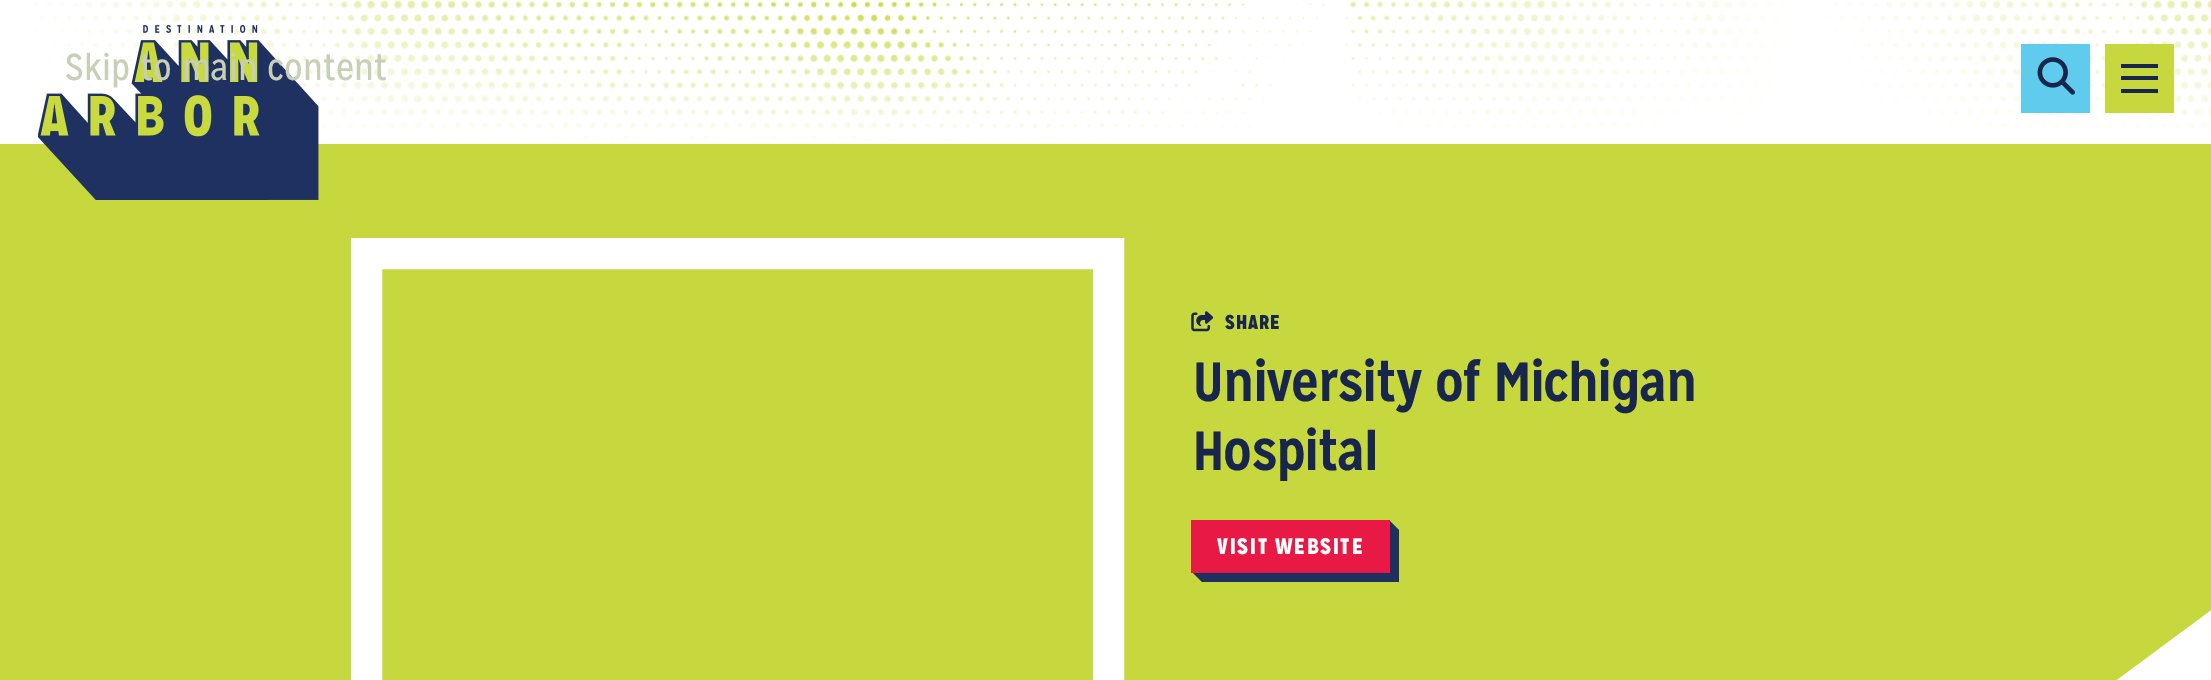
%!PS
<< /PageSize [2211 680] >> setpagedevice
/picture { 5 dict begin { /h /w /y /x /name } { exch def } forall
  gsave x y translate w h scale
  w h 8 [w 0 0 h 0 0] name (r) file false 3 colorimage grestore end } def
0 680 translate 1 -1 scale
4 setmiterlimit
1 setgray
0 0 2211 680 rectfill
0.776 0.847 0.239 setrgbcolor
newpath 0 100 moveto 0 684 lineto 2111 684 lineto 2211 610 lineto 2211 100 lineto closepath fill
1 setgray
0 100 2211 44 rectfill
(img1.rgb) 28 0 2183 141 picture
(img2.rgb) 38 25 281 175 picture
/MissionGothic-Regular [37.5 0 0 -37.5 0 0] selectfont
0.78 0.812 0.714 setrgbcolor
65 80 moveto (Skip to main content) show
0.376 0.8 0.929 setrgbcolor
2021 44 69 69 rectfill
(img3.rgb) 2037 57 38 38 picture
0.776 0.847 0.239 setrgbcolor
2105 44 69 69 rectfill
0.094 0.149 0.302 setrgbcolor
2121 76 37 4 rectfill
2121 64 37 4 rectfill
2121 89 37 4 rectfill
1 setgray
31 setlinewidth
366.5 253.5 742 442 rectstroke
(img4.rgb) 1191 311 23 21 picture
/MissionGothic-Black [20 0 0 -20 0 0] selectfont
0.094 0.149 0.302 setrgbcolor
1225 329 moveto 1 0 (SHARE) ashow
/MissionGothic-Bold [55 0 0 -55 0 0] selectfont
1192 401 moveto -1.65 0 (University of Michigan) ashow
1192 470 moveto -1.65 0 (Hospital) ashow
0.118 0.188 0.376 setrgbcolor
newpath 1202 582 moveto 1399 582 lineto 1399 530 lineto 1389 520 lineto 1192 520 lineto 1192 572 lineto closepath fill
0.91 0.098 0.267 setrgbcolor
1191 520 199 53 rectfill
/MissionGothic-Black [22.5 0 0 -22.5 0 0] selectfont
1 setgray
1217 554 moveto 1.75 0 (VISIT WEBSITE) ashow
showpage
